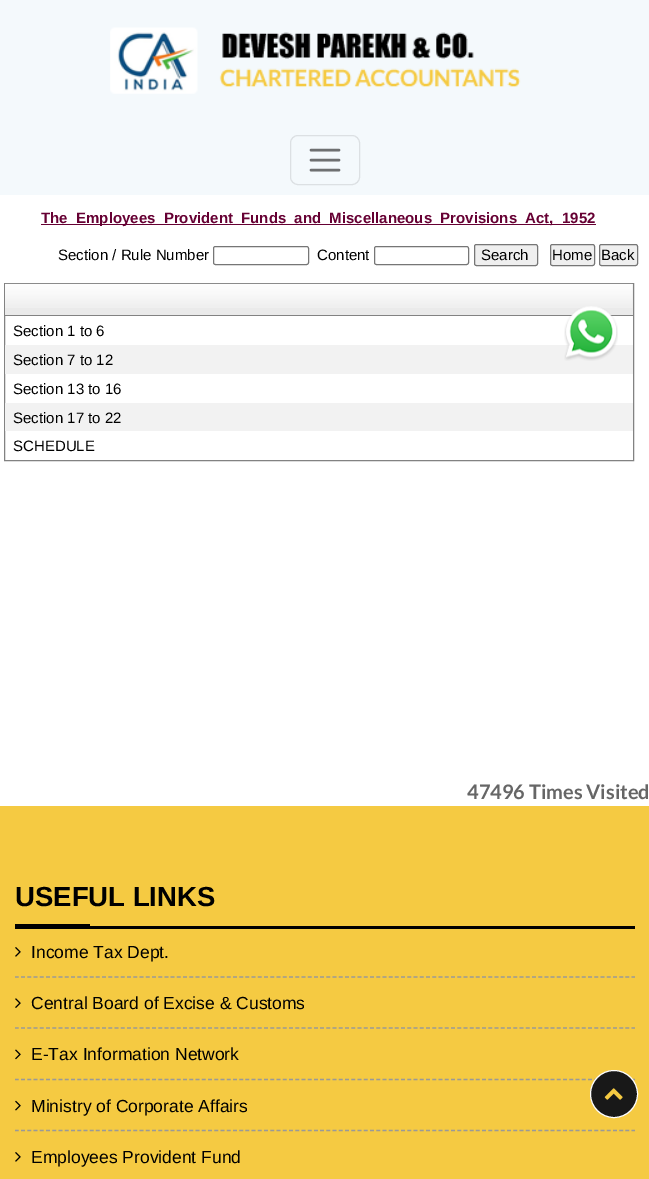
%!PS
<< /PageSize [649 1179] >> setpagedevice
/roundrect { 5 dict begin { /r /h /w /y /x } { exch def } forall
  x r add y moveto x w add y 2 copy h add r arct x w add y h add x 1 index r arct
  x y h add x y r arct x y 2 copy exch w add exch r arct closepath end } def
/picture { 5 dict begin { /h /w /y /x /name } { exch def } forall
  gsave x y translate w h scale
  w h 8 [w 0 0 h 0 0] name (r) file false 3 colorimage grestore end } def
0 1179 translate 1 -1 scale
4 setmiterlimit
1 setgray
0 0 649 1179 rectfill
0.957 0.976 0.988 setrgbcolor
0 0 649 195 rectfill
(img1.rgb) 110 27 411 67 picture
0.863 0.878 0.89 setrgbcolor
290.5 135.5 69 49 7.5 roundrect stroke
0.431 0.439 0.443 setrgbcolor
2.5 setlinewidth
1 setlinecap
newpath 311 150 moveto 339 150 lineto 311 160 moveto 339 160 lineto 311 170 moveto 339 170 lineto stroke
0.4 0 0.2 setrgbcolor
41 224 555 1 rectfill
/LiberationSans-Bold [15 0 0 -15 0 0] selectfont
41 223 moveto (The_Employees_Provident_Funds_and_Miscellaneous_Provisions_Act,_1952) show
/LiberationSans-Regular [15 0 0 -15 0 0] selectfont
0 setgray
58 260 moveto (Section / Rule Number) show
0.463 setgray
1 setlinewidth
0 setlinecap
213.5 246.5 95 18 2 roundrect stroke
0 setgray
317 260 moveto (Content) show
0.463 setgray
374.5 246.5 94 18 2 roundrect stroke
0.937 setgray
474.5 244.5 63 21 2 roundrect gsave fill grestore
0.463 setgray
stroke
0 setgray
481 260 moveto (Search) show
0.937 setgray
550.5 244.5 44 21 2 roundrect gsave fill grestore
0.463 setgray
stroke
0 setgray
552 260 moveto (Home) show
0.937 setgray
599.5 244.5 38 21 2 roundrect gsave fill grestore
0.463 setgray
stroke
0 setgray
601 260 moveto (Back) show
0.51 setgray
4.5 283.5 629 177 rectstroke
0.918 setgray
5 284 628 31 rectfill
(img2.rgb) 5 283 628 25 picture
0.51 setgray
5 315 628 1 rectfill
0 setgray
13 336 moveto (Section 1 to 6) show
0.949 setgray
5 345 628 29 rectfill
0 setgray
13 365 moveto (Section 7 to 12) show
13 394 moveto (Section 13 to 16) show
0.949 setgray
5 403 628 28 rectfill
0 setgray
13 423 moveto (Section 17 to 22) show
13 451 moveto (SCHEDULE) show
/Lato-Bold [20 0 0 -20 0 0] selectfont
0.4 setgray
467 799 moveto (47496 Times Visited) show
(img3.rgb) 564 306 54 55 picture
0.961 0.792 0.259 setrgbcolor
0 806 649 373 rectfill
/LiberationSans-Bold [27.5 0 0 -27.5 0 0] selectfont
0 setgray
15 906 moveto (USEFUL LINKS) show
15 924 75 5 rectfill
90 926 545 3 rectfill
0.6 setgray
1.2 setlinewidth
[3.75 2.48] 0 setdash
newpath 15 977 moveto 635 977 lineto stroke
(img4.rgb) 15 947 6 10 picture
/LiberationSans-Regular [17.5 0 0 -17.5 0 0] selectfont
0 setgray
31 958 moveto (Income Tax Dept.) show
0.6 setgray
newpath 15 1028 moveto 635 1028 lineto stroke
(img5.rgb) 15 998 6 10 picture
0 setgray
31 1009 moveto (Central Board of Excise & Customs) show
0.6 setgray
newpath 15 1079.5 moveto 635 1079.5 lineto stroke
(img6.rgb) 15 1049 6 11 picture
0 setgray
31 1060 moveto (E-Tax Information Network) show
0.6 setgray
newpath 15 1130.5 moveto 635 1130.5 lineto stroke
(img7.rgb) 15 1100 6 11 picture
0 setgray
31 1112 moveto (Ministry of Corporate Affairs) show
(img4.rgb) 15 1152 6 10 picture
31 1163 moveto (Employees Provident Fund) show
0.094 setgray
newpath 614 1094 23.5 0 360 arc closepath gsave fill grestore
1 setgray
1 setlinewidth
[] 0 setdash
stroke
(img8.rgb) 604 1088 19 12 picture
showpage
